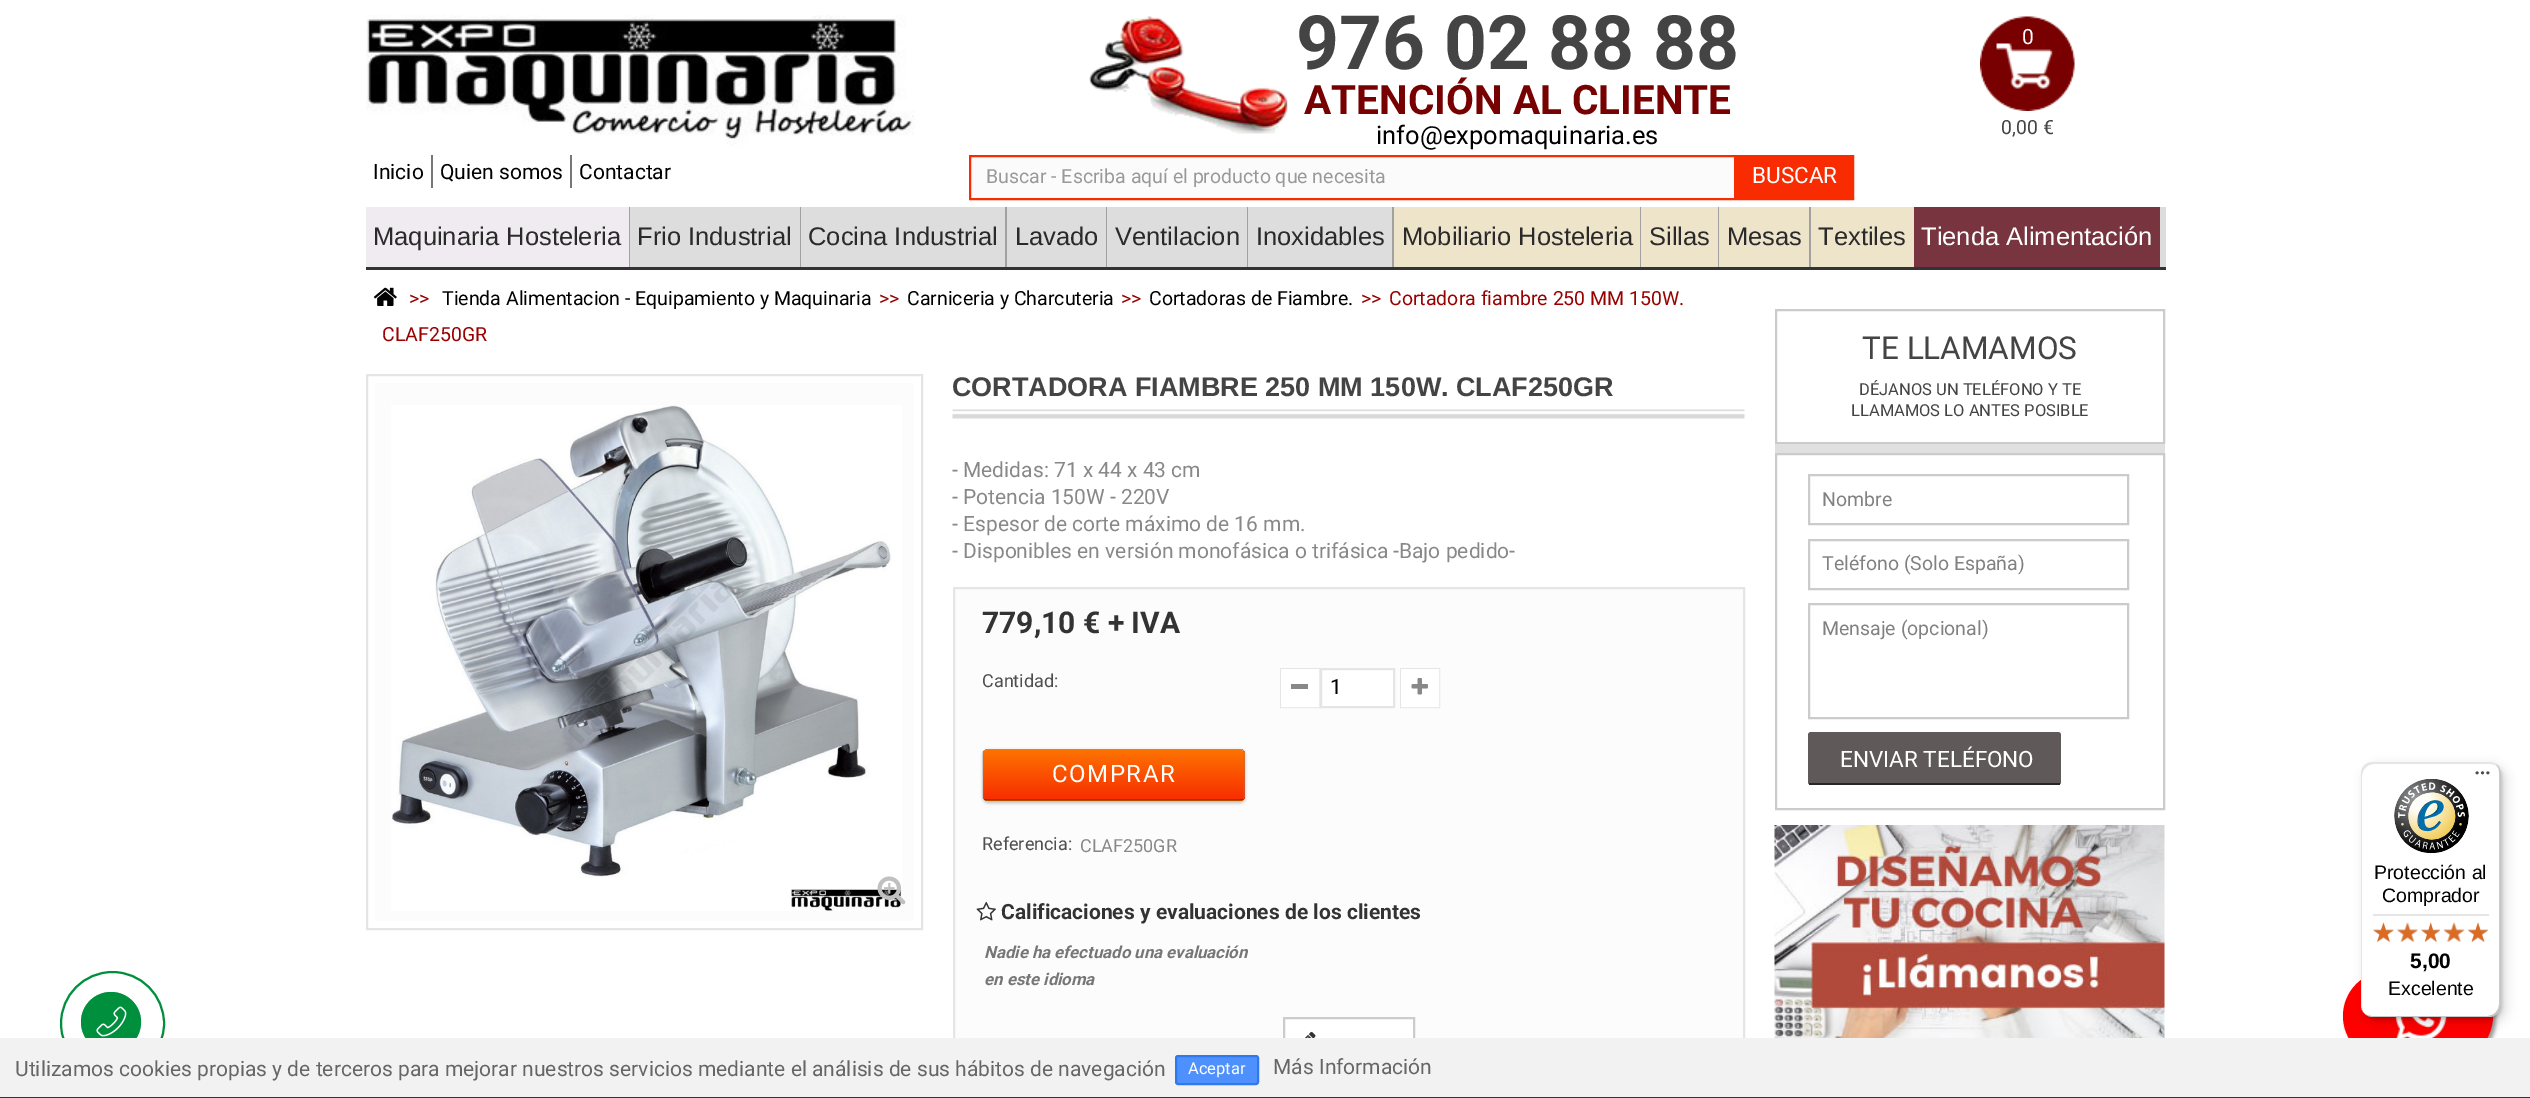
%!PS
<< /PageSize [2530 1098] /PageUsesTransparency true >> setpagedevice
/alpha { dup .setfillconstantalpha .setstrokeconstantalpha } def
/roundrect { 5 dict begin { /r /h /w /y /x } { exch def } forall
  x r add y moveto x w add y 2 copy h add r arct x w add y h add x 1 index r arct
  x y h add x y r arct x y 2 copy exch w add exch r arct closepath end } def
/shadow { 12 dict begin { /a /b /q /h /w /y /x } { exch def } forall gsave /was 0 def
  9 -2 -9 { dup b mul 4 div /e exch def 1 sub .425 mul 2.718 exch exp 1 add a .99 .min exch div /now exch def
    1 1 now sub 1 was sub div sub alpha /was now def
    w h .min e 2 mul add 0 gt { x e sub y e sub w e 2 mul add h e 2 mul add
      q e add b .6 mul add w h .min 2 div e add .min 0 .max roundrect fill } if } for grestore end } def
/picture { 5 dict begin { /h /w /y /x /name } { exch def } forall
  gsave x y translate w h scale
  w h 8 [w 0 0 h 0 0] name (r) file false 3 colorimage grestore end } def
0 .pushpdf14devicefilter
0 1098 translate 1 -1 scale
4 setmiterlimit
1 setgray
0 0 2530 1098 rectfill
(img1.rgb) 366 15 549 132 picture
(img2.rgb) 1089 16 199 118 picture
/Roboto-Bold [75 0 0 -75 0 0] selectfont
0.267 setgray
1296 69 moveto (976 02 88 88) show
/Roboto-Bold [40.5 0 0 -40.5 0 0] selectfont
0.467 0 0 setrgbcolor
1304 114 moveto (ATENCIÓN AL CLIENTE) show
/Roboto-Regular [25.5 0 0 -25.5 0 0] selectfont
0 setgray
1376 144 moveto (info@expomaquinaria.es) show
(img3.rgb) 1980 16 95 95 picture
/Roboto-Regular [21 0 0 -21 0 0] selectfont
1 setgray
2022 44 moveto (0) show
/Roboto-Regular [19.5 0 0 -19.5 0 0] selectfont
0.267 setgray
2001 134 moveto (0,00 €) show
/Roboto-Regular [21 0 0 -21 0 0] selectfont
0 setgray
373 179 moveto (Inicio) show
0.467 setgray
431 155 2 33 rectfill
0 setgray
440 179 moveto (Quien somos) show
0.467 setgray
570 155 2 33 rectfill
0 setgray
579 179 moveto (Contactar) show
0.984 setgray
971 157 763 41 rectfill
0.973 0.173 0 setrgbcolor
2 setlinewidth
970 156 883 43 rectstroke
/Roboto-Regular [19.5 0 0 -19.5 0 0] selectfont
0.6 setgray
986 183 moveto (Buscar - Escriba aquí el producto que necesita) show
0.973 0.173 0 setrgbcolor
1734 157 118 41 rectfill
/Roboto-Regular [22.5 0 0 -22.5 0 0] selectfont
1 setgray
1752 183 moveto (BUSCAR) show
0.2 setgray
366 267 1800 3 rectfill
0.867 setgray
1007 207 1159 60 rectfill
0.631 setgray
629 207 1 60 rectfill
0.941 0.922 0.941 setrgbcolor
366 207 263 60 rectfill
/LiberationSans-Regular [25.5 0 0 -25.5 0 0] selectfont
0.169 0.165 0.169 setrgbcolor
373 245 moveto (Maquinaria Hosteleria) show
0.631 setgray
800 207 1 60 rectfill
0.867 setgray
630 207 170 60 rectfill
0.169 0.165 0.169 setrgbcolor
637 245 moveto (Frio Industrial) show
0.631 setgray
1005 207 2 60 rectfill
0.867 setgray
801 207 204 60 rectfill
0.169 0.165 0.169 setrgbcolor
808 245 moveto (Cocina Industrial) show
0.631 setgray
1106 207 1 60 rectfill
0.169 0.165 0.169 setrgbcolor
1015 245 moveto (Lavado) show
0.631 setgray
1247 207 1 60 rectfill
0.169 0.165 0.169 setrgbcolor
1115 245 moveto (Ventilacion) show
0.631 setgray
1392 207 2 60 rectfill
0.169 0.165 0.169 setrgbcolor
1256 245 moveto (Inoxidables) show
0.631 setgray
1640 207 1 60 rectfill
0.929 0.894 0.792 setrgbcolor
1394 207 246 60 rectfill
0.169 0.165 0.169 setrgbcolor
1402 245 moveto (Mobiliario Hosteleria) show
0.631 setgray
1718 207 1 60 rectfill
0.929 0.894 0.792 setrgbcolor
1641 207 77 60 rectfill
0.169 0.165 0.169 setrgbcolor
1649 245 moveto (Sillas) show
0.631 setgray
1809 207 2 60 rectfill
0.929 0.894 0.792 setrgbcolor
1719 207 90 60 rectfill
0.169 0.165 0.169 setrgbcolor
1727 245 moveto (Mesas) show
0.929 0.894 0.792 setrgbcolor
1811 207 103 60 rectfill
0.169 0.165 0.169 setrgbcolor
1818 245 moveto (Textiles) show
0.471 0.208 0.247 setrgbcolor
1914 207 246 60 rectfill
1 setgray
1921 245 moveto (Tienda Alimentación) show
(img4.rgb) 373 287 24 19 picture
/Roboto-Regular [19.5 0 0 -19.5 0 0] selectfont
0.6 0 0 setrgbcolor
409 305 moveto (>>) show
0 setgray
442 305 moveto (Tienda Alimentacion - Equipamiento y Maquinaria) show
0.6 0 0 setrgbcolor
879 305 moveto (>>) show
0 setgray
907 305 moveto (Carniceria y Charcuteria) show
0.6 0 0 setrgbcolor
1121 305 moveto (>>) show
0 setgray
1149 305 moveto (Cortadoras de Fiambre.) show
0.6 0 0 setrgbcolor
1361 305 moveto (>>) show
1389 305 moveto (Cortadora fiambre 250 MM 150W.) show
382 341 moveto (CLAF250GR) show
0.898 setgray
367 375 555 554 rectstroke
0.988 setgray
375 383 539 538 rectfill
(img5.rgb) 391 405 511 506 picture
(img6.rgb) 877 876 29 29 picture
(img7.rgb) 952 409 793 10 picture
/LiberationSans-Bold [27 0 0 -27 0 0] selectfont
0.267 setgray
952 396 moveto (CORTADORA FIAMBRE 250 MM 150W. CLAF250GR) show
/Roboto-Regular [21 0 0 -21 0 0] selectfont
0.533 setgray
952 477 moveto (- Medidas: 71 x 44 x 43 cm) show
952 504 moveto (- Potencia 150W - 220V) show
952 531 moveto (- Espesor de corte máximo de 16 mm.) show
952 558 moveto (- Disponibles en versión monofásica o trifásica -Bajo pedido-) show
0.988 setgray
955 589 788 449 rectfill
0.898 setgray
954 588 790 503 rectstroke
/Roboto-Bold [30 0 0 -30 0 0] selectfont
0.2 setgray
982 633 moveto (779,10 € + IVA) show
/Roboto-Regular [18 0 0 -18 0 0] selectfont
0.31 setgray
982 687 moveto (Cantidad:) show
1 setgray
1283 671 34 34 rectfill
0.898 setgray
1281 669 38 38 rectstroke
1 setgray
1282 670 36 36 rectstroke
0.533 setgray
1291 684 17 5 rectfill
1 setgray
newpath 1321 669 moveto 1394 669 lineto 1394 707 lineto 1321 707 lineto closepath gsave fill grestore
0.898 setgray
stroke
/Roboto-Regular [21 0 0 -21 0 0] selectfont
0 setgray
1330 694 moveto (1) show
1 setgray
1403 671 34 34 rectfill
0.898 setgray
1401 669 38 38 rectstroke
1 setgray
1402 670 36 36 rectstroke
(img8.rgb) 1411 678 17 17 picture
0 setgray
983 750 262 53 5 1.5 0.25 shadow
gsave
983 749 262 52 5 roundrect clip newpath
gsave newpath 983 749 moveto 1245 749 lineto 1245 750 lineto 983 750 lineto closepath clip newpath
<< /ShadingType 2 /ColorSpace /DeviceRGB /Coords [1114 701 1114 750] /Extend [true true] /Function << /FunctionType 2 /Domain [0 1] /C0 [0.992 0.451 0] /C1 [0.973 0.173 0] /N 1 >> >> shfill grestore
gsave newpath 983 750 moveto 1245 750 lineto 1245 800 lineto 983 800 lineto closepath clip newpath
<< /ShadingType 2 /ColorSpace /DeviceRGB /Coords [1114 750 1114 800] /Extend [true true] /Function << /FunctionType 2 /Domain [0 1] /C0 [0.992 0.451 0] /C1 [0.973 0.173 0] /N 1 >> >> shfill grestore
gsave newpath 983 800 moveto 1245 800 lineto 1245 801 lineto 983 801 lineto closepath clip newpath
<< /ShadingType 2 /ColorSpace /DeviceRGB /Coords [1114 800 1114 849] /Extend [true true] /Function << /FunctionType 2 /Domain [0 1] /C0 [0.992 0.451 0] /C1 [0.973 0.173 0] /N 1 >> >> shfill grestore
grestore
0.3 alpha
1 setgray
1.5 setlinewidth
newpath 984.5 750.5 moveto 985 749.5 986 749 987 749 curveto 1240.5 749 lineto 1241.5 749 1242.5 749.5 1243 750.5 curveto stroke
0.502 setgray
newpath 1243 750.5 moveto 1244 751 1244 752 1244 753 curveto 1244 796.5 lineto 1244 797.5 1244 798.5 1243 799 curveto stroke
0 setgray
newpath 1243 799 moveto 1242.5 800 1241.5 800 1240.5 800 curveto 987 800 lineto 986 800 985 800 984.5 799 curveto stroke
0.502 setgray
newpath 984.5 799 moveto 983.5 798.5 983 797.5 983 796.5 curveto 983 753 lineto 983 752 983.5 751 984.5 750.5 curveto stroke
/Roboto-Regular [24 0 0 -24 0 0] selectfont
1 alpha
1 setgray
1052 782 moveto 1.5 0 (COMPRAR) ashow
/Roboto-Regular [18 0 0 -18 0 0] selectfont
0.31 setgray
982 850 moveto (Referencia:) show
0.533 setgray
1080 852 moveto (CLAF250GR) show
(img9.rgb) 976 901 20 20 picture
/Roboto-Bold [21 0 0 -21 0 0] selectfont
0.2 setgray
1001 919 moveto (Calificaciones y evaluaciones de los clientes) show
/Roboto-BoldItalic [16.75 0 0 -16.75 0 0] selectfont
0.467 0.463 0.463 setrgbcolor
984 958 moveto (Nadie ha efectuado una evaluación) show
984 985 moveto (en este idioma) show
1 setgray
1285 1019 128 19 rectfill
0.8 setgray
2 setlinewidth
1284 1018 130 46 rectstroke
(img10.rgb) 1305 1031 11 7 picture
0.796 0.796 0.8 setrgbcolor
1776 310 388 133 rectstroke
/Roboto-Regular [31.5 0 0 -31.5 0 0] selectfont
0.267 setgray
1862 359 moveto (TE LLAMAMOS) show
/Roboto-Regular [16.5 0 0 -16.5 0 0] selectfont
1859 395 moveto (DÉJANOS UN TELÉFONO Y TE) show
1851 416 moveto (LLAMAMOS LO ANTES POSIBLE) show
0.878 setgray
1775 444 390 9 rectfill
0.796 0.796 0.8 setrgbcolor
1776 454 388 355 rectstroke
1809 475 319 49 rectstroke
/Roboto-Regular [19.5 0 0 -19.5 0 0] selectfont
0.506 setgray
1822 506 moveto (Nombre) show
0.796 0.796 0.8 setrgbcolor
1809 540 319 49 rectstroke
0.506 setgray
1822 570 moveto (Teléfono \(Solo España\)) show
0.796 0.796 0.8 setrgbcolor
1809 604 319 114 rectstroke
0.506 setgray
1822 635 moveto (Mensaje \(opcional\)) show
0.373 0.349 0.349 setrgbcolor
1808 732 253 53 3 roundrect fill
0.149 setgray
1809 783 251 2 rectfill
/Roboto-Regular [22.5 0 0 -22.5 0 0] selectfont
1 setgray
1840 767 moveto (ENVIAR TELÉFONO) show
(img11.rgb) 1774 825 391 213 picture
0.6 setgray
2346 974 150 90 45 2 1 shadow
1 0 0 setrgbcolor
2343 971 150 90 45 roundrect fill
0.502 0.78 0.62 setrgbcolor
newpath 111 1022 29 0 360 arc closepath stroke
0 0.561 0.235 setrgbcolor
newpath 112.5 1023.5 51.5 0 360 arc closepath stroke
newpath 111 1022 30 0 360 arc closepath fill
0.949 setgray
0 1038 2530 59 rectfill
0.2 setgray
0 1097 2530 1 rectfill
/Roboto-Regular [21 0 0 -21 0 0] selectfont
0.4 setgray
15 1076 moveto (Utilizamos cookies propias y de terceros para mejorar nuestros servicios mediante el análisis de sus hábitos de navegación) show
0.302 0.565 0.996 setrgbcolor
1176 1056 82 28 2 roundrect gsave fill grestore
0.188 0.475 0.929 setrgbcolor
stroke
/Roboto-Regular [16.5 0 0 -16.5 0 0] selectfont
1 setgray
1188 1074 moveto (Aceptar) show
/Roboto-Regular [21 0 0 -21 0 0] selectfont
0.4 setgray
1273 1074 moveto (Más Información) show
(img12.rgb) 2395 1017 52 21 picture
0 setgray
2366 767 139 255 12 6 0.15 shadow
2363 764 139 255 12 1.5 0.15 shadow
1 setgray
2361 762 140 255 12 roundrect fill
0.1 alpha
0 setgray
newpath 2374 764 moveto 2490 764 lineto 2494 764 2498 766 2500 769 curveto 2498 765 2494 762 2489 762 curveto 2373 762 lineto 2366 762 2361 767 2361 774 curveto 2361 1005 lineto 2361 1009 2363 1012 2365 1014 curveto 2363 1012 2362 1009 2362 1006 curveto 2362 776 lineto 2362 769 2368 764 2374 764 curveto closepath fill
0.2 alpha
newpath 2364 1013 moveto 2366 1015 2369 1017 2373 1017 curveto 2489 1017 lineto 2496 1017 2501 1012 2501 1005 curveto 2501 774 lineto 2501 770 2499 767 2496 764 curveto 2498 767 2499 769 2499 772 curveto 2499 1004 lineto 2499 1010 2494 1016 2487 1016 curveto 2372 1016 lineto 2369 1016 2366 1015 2364 1013 curveto closepath fill
0.196 setgray
newpath 2365 1014 moveto 2367 1016 2370 1017 2373 1017 curveto 2489 1017 lineto 2496 1017 2501 1012 2501 1005 curveto 2501 774 lineto 2501 770 2499 767 2497 765 curveto 2499 767 2500 770 2500 773 curveto 2500 1004 lineto 2500 1011 2494 1016 2488 1016 curveto 2372 1016 lineto 2369 1016 2367 1015 2365 1014 curveto closepath fill
0.3 alpha
1 setgray
newpath 2364 1013 moveto 2366 1015 2369 1017 2373 1017 curveto 2489 1017 lineto 2496 1017 2501 1012 2501 1005 curveto 2501 774 lineto 2501 769 2499 766 2495 764 curveto 2498 766 2500 769 2500 773 curveto 2500 1004 lineto 2500 1011 2494 1016 2488 1016 curveto 2372 1016 lineto 2369 1016 2366 1015 2364 1013 curveto closepath fill
1 alpha
(img13.rgb) 2475 771 15 4 picture
(img14.rgb) 2394 779 75 75 picture
/LiberationSans-Regular [19.5 0 0 -19.5 0 0] selectfont
0 setgray
2374 879 moveto (Protección al) show
2382 902 moveto (Comprador) show
0.898 setgray
2373 914 116 2 rectfill
(img20.rgb) 2373 923 21 19 picture
(img15.rgb) 2373 922 21 20 picture
(img21.rgb) 2397 923 21 19 picture
(img16.rgb) 2397 922 21 20 picture
(img22.rgb) 2421 923 19 19 picture
(img17.rgb) 2421 922 19 20 picture
(img23.rgb) 2444 923 20 19 picture
(img18.rgb) 2443 922 22 20 picture
(img24.rgb) 2468 923 20 19 picture
(img19.rgb) 2468 922 20 20 picture
/LiberationSans-Bold [21 0 0 -21 0 0] selectfont
0 setgray
2410 968 moveto (5,00) show
/LiberationSans-Regular [19.5 0 0 -19.5 0 0] selectfont
2388 995 moveto (Excelente) show
(img25.rgb) 96 1006 31 31 picture
.poppdf14devicefilter showpage
